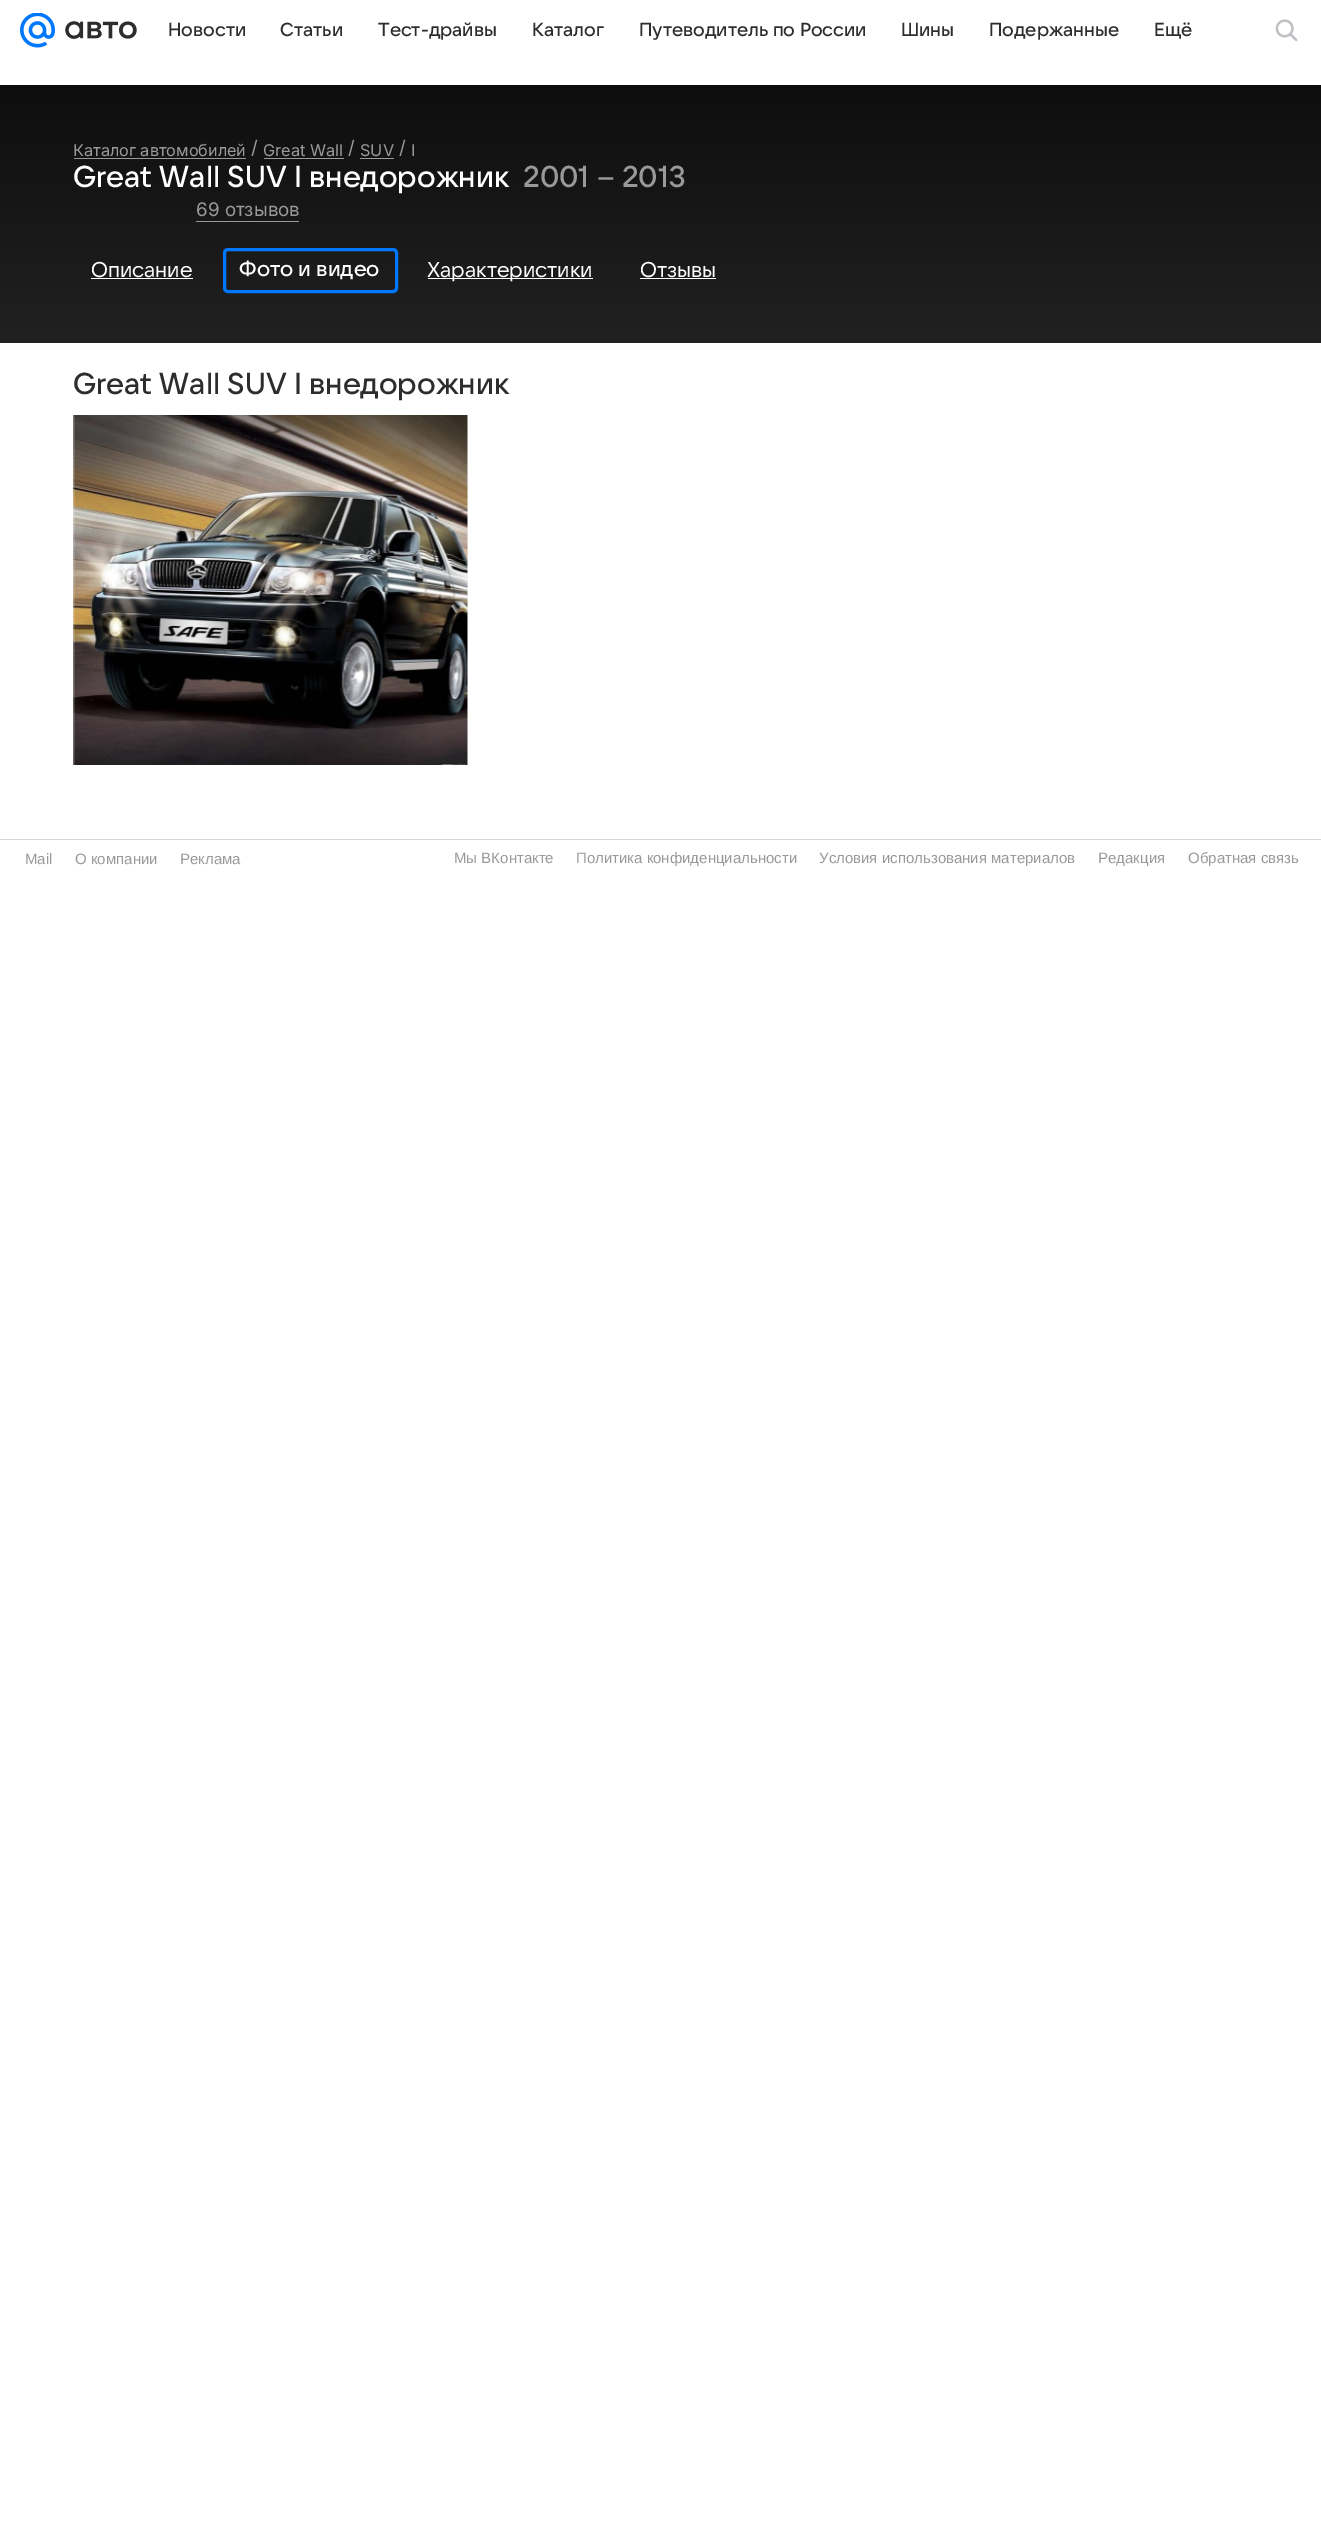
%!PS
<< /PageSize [1321 2521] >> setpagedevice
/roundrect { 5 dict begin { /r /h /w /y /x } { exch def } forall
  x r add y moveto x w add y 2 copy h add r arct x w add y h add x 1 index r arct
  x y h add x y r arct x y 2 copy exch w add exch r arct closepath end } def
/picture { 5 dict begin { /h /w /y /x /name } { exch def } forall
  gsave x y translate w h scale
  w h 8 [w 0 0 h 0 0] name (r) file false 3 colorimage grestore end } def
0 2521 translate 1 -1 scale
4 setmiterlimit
1 setgray
0 0 1321 2521 rectfill
(img1.rgb) 20 13 35 35 picture
(img2.rgb) 65 21 72 18 picture
/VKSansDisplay-Medium [18.75 0 0 -18.75 0 0] selectfont
0.173 0.176 0.18 setrgbcolor
168 36 moveto (Новости) show
280 36 moveto (Статьи) show
378 36 moveto (Тест-драйвы) show
532 36 moveto (Каталог) show
639 36 moveto (Путеводитель по России) show
901 36 moveto (Шины) show
989 36 moveto (Подержанные) show
1154 36 moveto (Ещё) show
(img3.rgb) 1275 19 23 23 picture
gsave newpath 0 85 moveto 1321 85 lineto 1321 343 lineto 0 343 lineto closepath clip newpath
<< /ShadingType 2 /ColorSpace /DeviceRGB /Coords [661 85 661 343] /Extend [true true] /Function << /FunctionType 2 /Domain [0 1] /C0 [0.055 0.055 0.055] /C1 [0.129 0.129 0.129] /N 1 >> >> shfill grestore
/Inter-Regular [16.25 0 0 -16.25 0 0] selectfont
0.6 setgray
73 156 moveto (Каталог автомобилей) show
74 158 172 1 rectfill
/Inter-Regular [18.75 0 0 -18.75 0 0] selectfont
251 154 moveto (/) show
/Inter-Regular [16.25 0 0 -16.25 0 0] selectfont
263 156 moveto (Great Wall) show
264 158 80 1 rectfill
/Inter-Regular [18.75 0 0 -18.75 0 0] selectfont
348 154 moveto (/) show
/Inter-Regular [16.25 0 0 -16.25 0 0] selectfont
360 156 moveto (SUV) show
360 158 34 1 rectfill
/Inter-Regular [18.75 0 0 -18.75 0 0] selectfont
399 154 moveto (/) show
/Inter-Regular [16.25 0 0 -16.25 0 0] selectfont
411 156 moveto (I) show
/VKSansDisplay-Medium [30 0 0 -30 0 0] selectfont
1 setgray
73 187 moveto (Great Wall SUV I внедорожник) show
0.6 setgray
523 187 moveto (2001 – 2013) show
/Inter-Regular [18.75 0 0 -18.75 0 0] selectfont
196 216 moveto (69 отзывов) show
196 221 103 1 rectfill
/VKSansDisplay-Regular [21.25 0 0 -21.25 0 0] selectfont
1 setgray
91 277 moveto (Описание) show
91 278 102 1 rectfill
0 0.467 1 setrgbcolor
3 setlinewidth
224.5 249.5 172 42 3.5 roundrect stroke
/VKSansDisplay-Medium [21.25 0 0 -21.25 0 0] selectfont
1 setgray
239 276 moveto (Фото и видео) show
428 278 165 1 rectfill
/VKSansDisplay-Regular [21.25 0 0 -21.25 0 0] selectfont
427 277 moveto (Характеристики) show
640 277 moveto (Отзывы) show
640 278 76 1 rectfill
/VKSansDisplay-Medium [30 0 0 -30 0 0] selectfont
0.173 0.176 0.18 setrgbcolor
73 394 moveto (Great Wall SUV I внедорожник) show
0.941 setgray
74 415 394 350 rectfill
(img4.rgb) 73 415 395 350 picture
0.835 setgray
0 839 1321 1 rectfill
/LiberationSans-Regular [15 0 0 -15 0 0] selectfont
0.6 setgray
25 864 moveto (Mail) show
75 864 moveto (О компании) show
180 864 moveto (Реклама) show
454 863 moveto (Мы ВКонтакте) show
576 863 moveto (Политика конфиденциальности) show
819 863 moveto (Условия использования материалов) show
1098 863 moveto (Редакция) show
1188 863 moveto (Обратная связь) show
showpage
